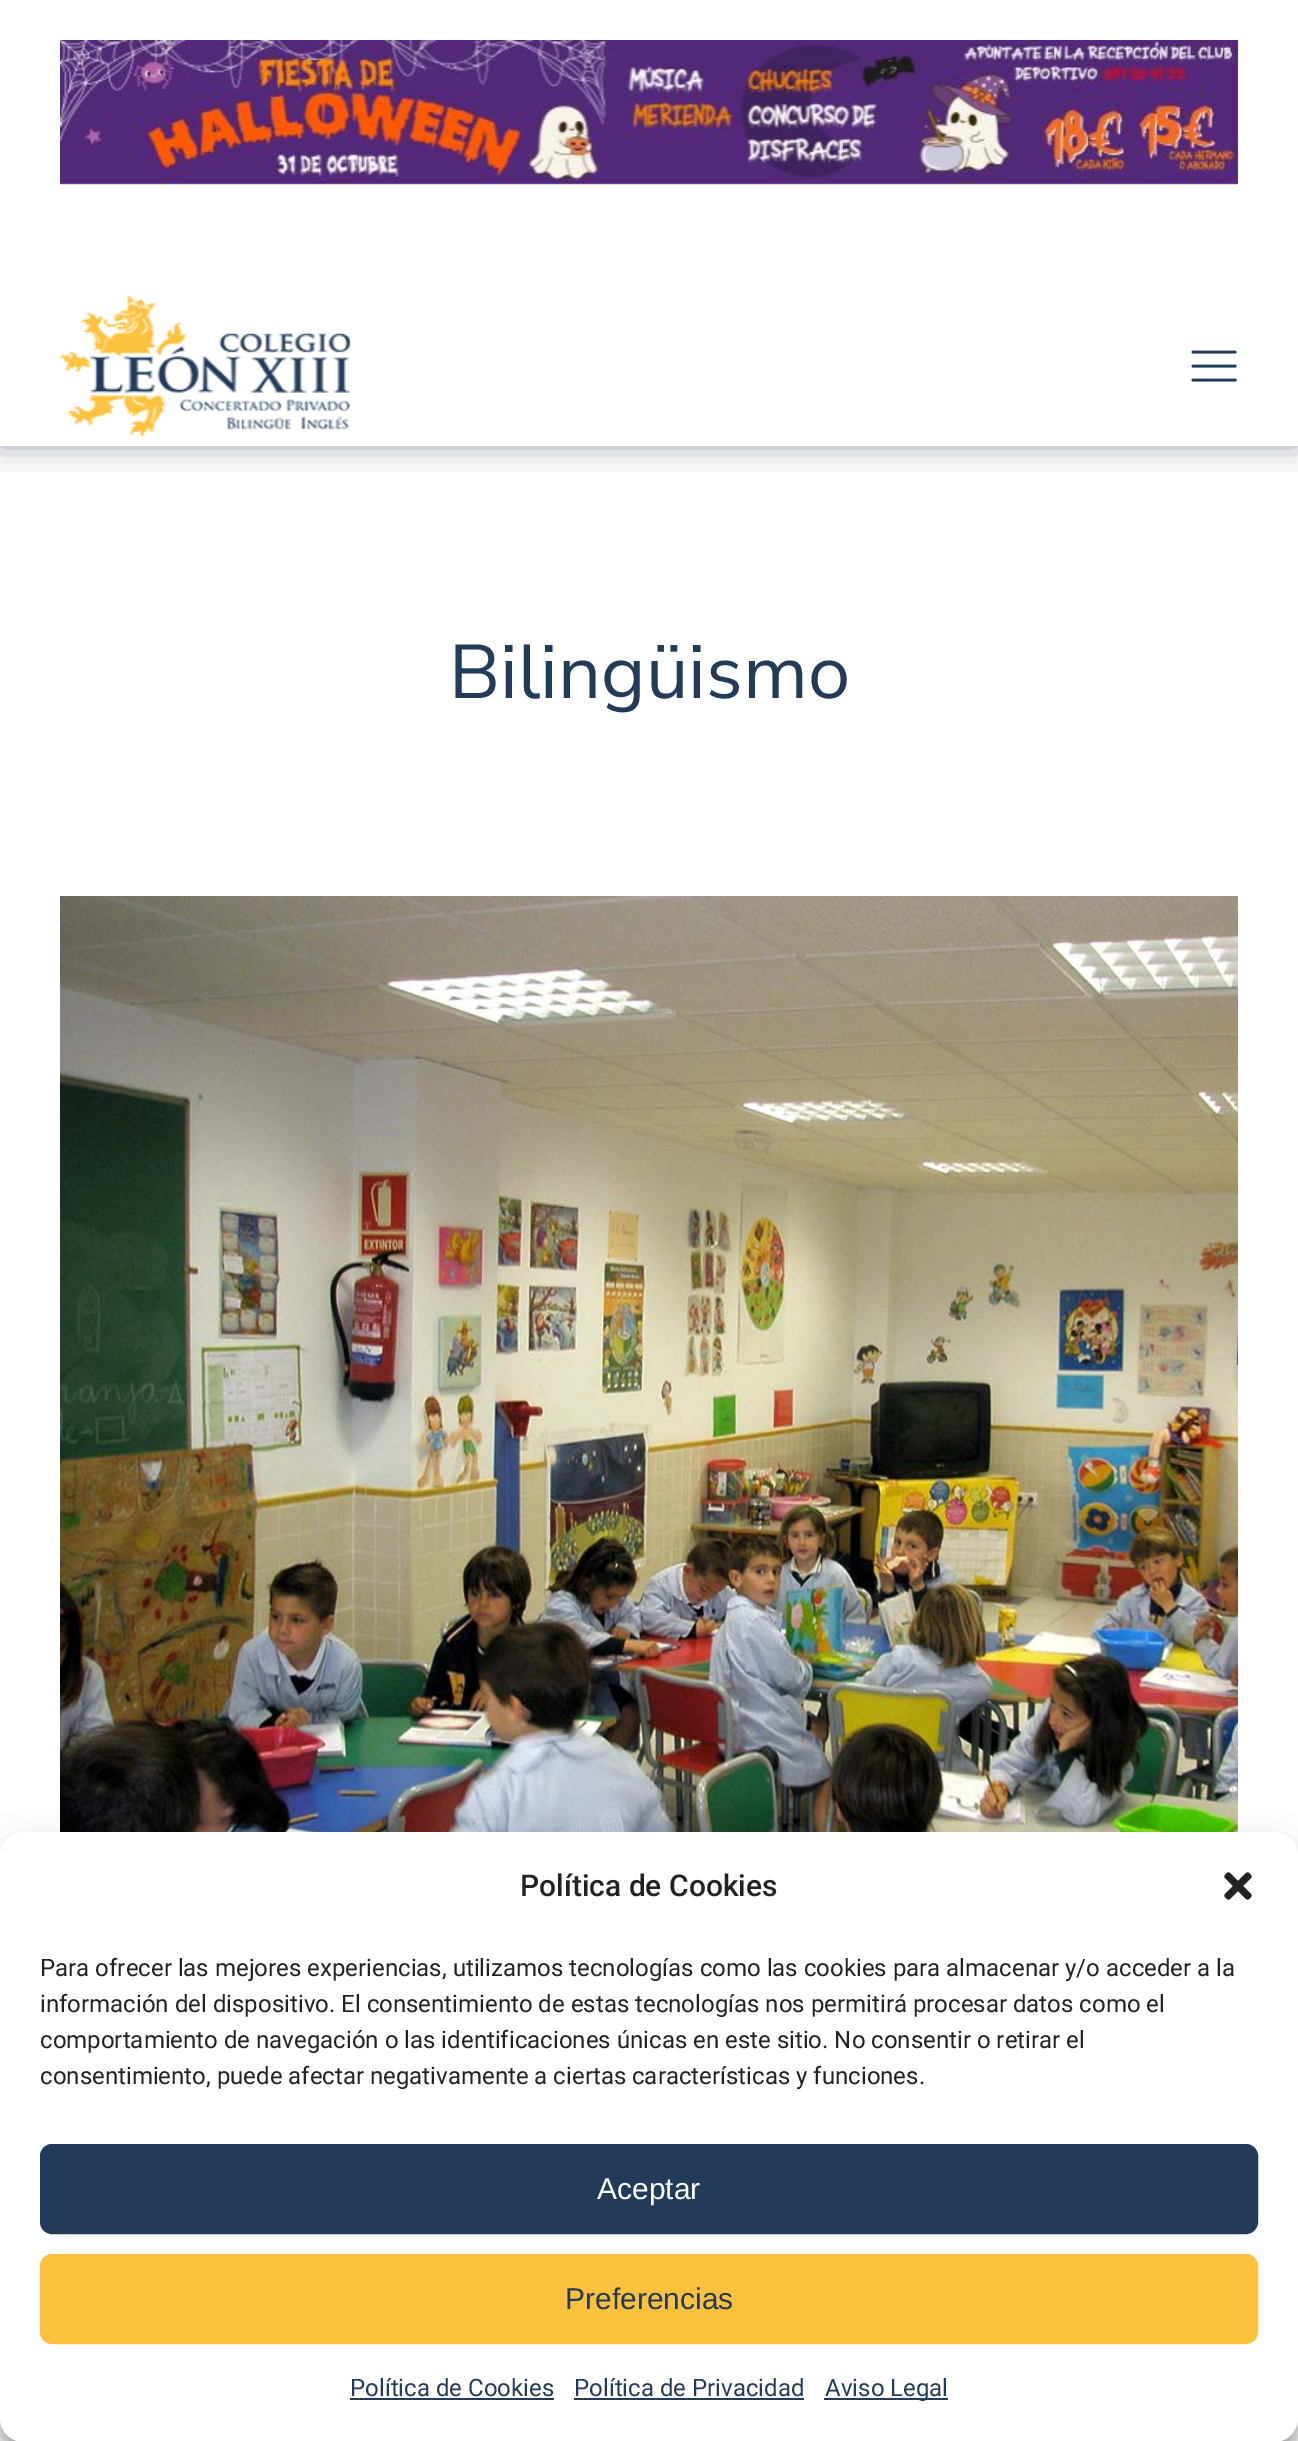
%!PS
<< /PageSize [1298 2441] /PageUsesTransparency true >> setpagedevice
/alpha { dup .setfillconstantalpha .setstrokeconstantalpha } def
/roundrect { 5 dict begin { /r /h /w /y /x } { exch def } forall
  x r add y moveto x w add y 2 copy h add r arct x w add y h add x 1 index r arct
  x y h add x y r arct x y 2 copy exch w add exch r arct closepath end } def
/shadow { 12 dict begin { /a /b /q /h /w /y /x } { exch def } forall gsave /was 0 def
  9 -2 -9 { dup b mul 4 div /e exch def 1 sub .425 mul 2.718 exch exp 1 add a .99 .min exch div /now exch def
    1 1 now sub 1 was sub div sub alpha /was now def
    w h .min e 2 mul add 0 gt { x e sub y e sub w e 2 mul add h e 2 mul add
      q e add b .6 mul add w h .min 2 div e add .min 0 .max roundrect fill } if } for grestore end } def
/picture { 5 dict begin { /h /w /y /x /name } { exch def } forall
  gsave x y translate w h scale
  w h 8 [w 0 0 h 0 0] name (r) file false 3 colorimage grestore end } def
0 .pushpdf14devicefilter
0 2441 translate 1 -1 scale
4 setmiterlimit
1 setgray
0 0 1298 2441 rectfill
gsave
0 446 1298 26 rectclip
0.129 0.231 0.349 setrgbcolor
0 0 1298 446 0 15 0.47 shadow
grestore
(img1.rgb) 60 40 1178 145 picture
(img2.rgb) 60 296 290 140 picture
(img3.rgb) 1191 350 46 32 picture
/NunitoSans-Regular [76 0 0 -76 0 0] selectfont
0.129 0.231 0.349 setrgbcolor
449 698 moveto (Bilingüismo) show
(img4.rgb) 60 896 1178 936 picture
0 setgray
0 1844 1298 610 24 6 0.23 shadow
0 1852 1298 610 24 20 0.19 shadow
1 setgray
0 1832 1298 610 24 roundrect fill
/Roboto-Medium [30 0 0 -30 0 0] selectfont
0.133 setgray
520 1896 moveto (Política de Cookies) show
(img5.rgb) 1224 1872 28 28 picture
/Roboto-Regular [24 0 0 -24 0 0] selectfont
40 1976 moveto (Para ofrecer las mejores experiencias, utilizamos tecnologías como las cookies para almacenar y/o acceder a la) show
40 2012 moveto (información del dispositivo. El consentimiento de estas tecnologías nos permitirá procesar datos como el) show
40 2048 moveto (comportamiento de navegación o las identificaciones únicas en este sitio. No consentir o retirar el) show
40 2084 moveto (consentimiento, puede afectar negativamente a ciertas características y funciones.) show
0.129 0.231 0.349 setrgbcolor
41 2145 1216 88 11 roundrect gsave fill grestore
2 setlinewidth
stroke
/LiberationSans-Regular [30 0 0 -30 0 0] selectfont
1 setgray
597 2199 moveto (Aceptar) show
0.996 0.757 0.243 setrgbcolor
41 2255 1216 88 11 roundrect gsave fill grestore
stroke
0.129 0.231 0.349 setrgbcolor
565 2309 moveto (Preferencias) show
/Roboto-Regular [24 0 0 -24 0 0] selectfont
350 2396 moveto (Política de Cookies) show
350 2398 204 2 rectfill
574 2396 moveto (Política de Privacidad) show
574 2398 230 2 rectfill
824 2398 124 2 rectfill
825 2396 moveto (Aviso Legal) show
.poppdf14devicefilter showpage
